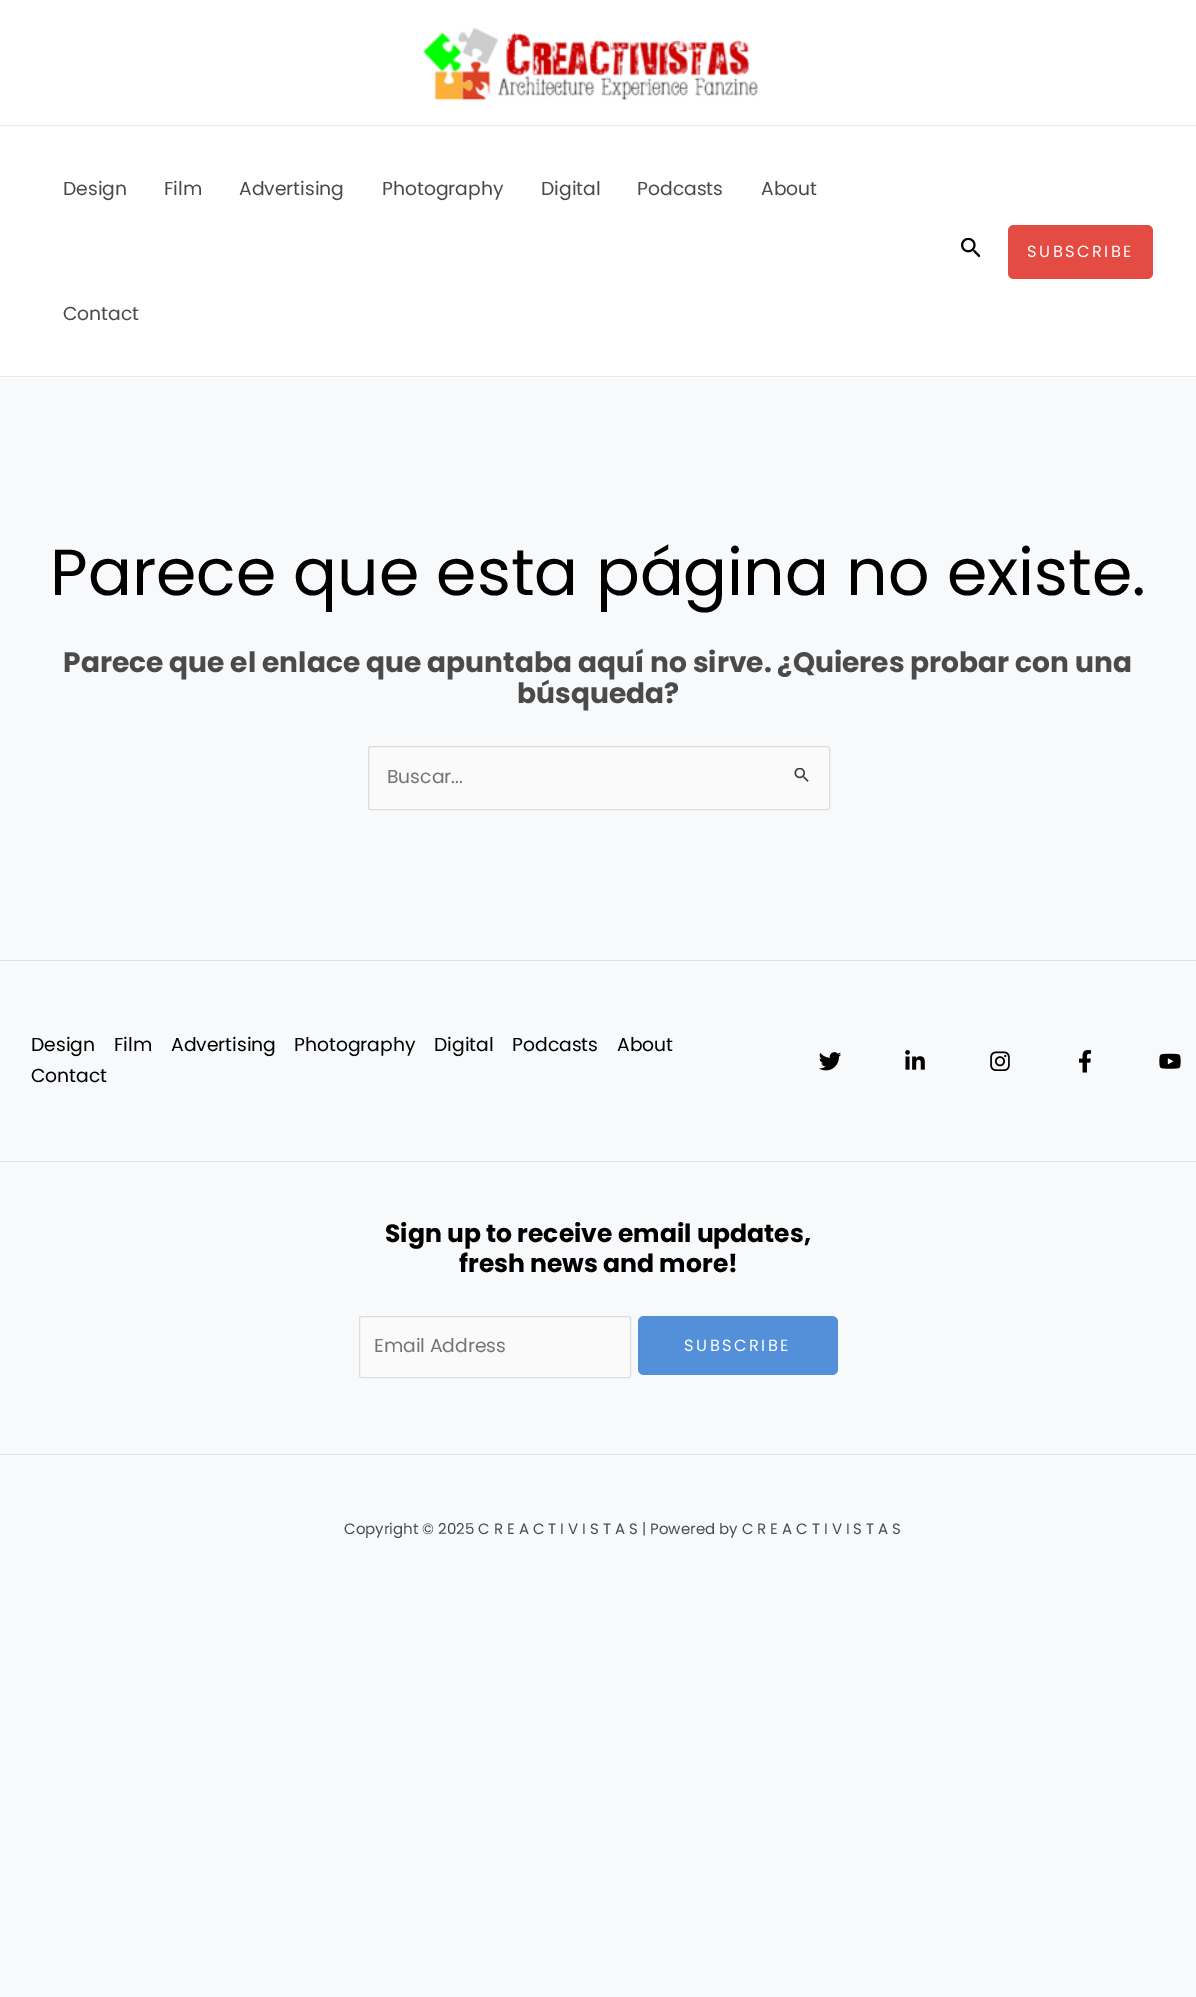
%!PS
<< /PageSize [1196 1997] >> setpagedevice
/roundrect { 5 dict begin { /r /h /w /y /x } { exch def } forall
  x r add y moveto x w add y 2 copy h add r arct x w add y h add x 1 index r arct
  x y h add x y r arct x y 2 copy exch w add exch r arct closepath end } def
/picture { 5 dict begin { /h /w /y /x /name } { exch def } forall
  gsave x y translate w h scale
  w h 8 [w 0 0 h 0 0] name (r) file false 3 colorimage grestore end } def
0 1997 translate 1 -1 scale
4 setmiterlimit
0.969 0.976 0.984 setrgbcolor
0 0 1196 1997 rectfill
1 setgray
0 0 1196 125 rectfill
0.918 setgray
0 125 1196 1 rectfill
(img1.rgb) 422 27 336 74 picture
1 setgray
0 126 1196 252 rectfill
0.918 setgray
0 376 1196 1 rectfill
/Poppins-Regular [18.75 0 0 -18.75 0 0] selectfont
0.29 setgray
63 195 moveto (Design) show
164 195 moveto (Film) show
239 195 moveto (Advertising) show
382 195 moveto (Photography) show
541 195 moveto (Digital) show
637 195 moveto (Podcasts) show
761 195 moveto (About) show
63 320 moveto (Contact) show
(img2.rgb) 961 238 19 20 picture
0.894 0.294 0.263 setrgbcolor
1008 225 145 54 6 roundrect fill
/Poppins-Regular [16.25 0 0 -16.25 0 0] selectfont
1 setgray
1027 257 moveto 2.5 0 (SUBSCRIBE) ashow
/Poppins-Regular [65 0 0 -65 0 0] selectfont
0 setgray
50 595 moveto (Parece que esta página no existe.) show
/Poppins-Bold [28.1 0 0 -28.1 0 0] selectfont
0.29 setgray
63 672 moveto (Parece que el enlace que apuntaba aquí no sirve. ¿Quieres probar con una) show
517 703 moveto (búsqueda?) show
0.98 setgray
368.5 746.5 461 63 2 roundrect gsave fill grestore
0.867 setgray
stroke
/Poppins-Regular [18.75 0 0 -18.75 0 0] selectfont
0.459 setgray
387 783 moveto (Buscar...) show
(img3.rgb) 794 768 15 14 picture
0.871 0.878 0.886 setrgbcolor
0 960 1196 1 rectfill
0 setgray
31 1051 moveto (Design) show
114 1051 moveto (Film) show
171 1051 moveto (Advertising) show
294 1051 moveto (Photography) show
434 1051 moveto (Digital) show
512 1051 moveto (Podcasts) show
617 1051 moveto (About) show
31 1082 moveto (Contact) show
(img4.rgb) 819 1052 22 19 picture
(img5.rgb) 905 1050 20 20 picture
(img6.rgb) 990 1051 20 20 picture
(img7.rgb) 1078 1050 14 23 picture
(img8.rgb) 1159 1053 22 16 picture
0.871 0.878 0.886 setrgbcolor
0 1161 1196 1 rectfill
/Poppins-Bold [25 0 0 -25 0 0] selectfont
0 setgray
385 1242 moveto (Sign up to receive email updates,) show
459 1272 moveto (fresh news and more!) show
0.98 setgray
359.5 1316.5 271 61 2 roundrect gsave fill grestore
0.867 setgray
stroke
/Poppins-Regular [18.75 0 0 -18.75 0 0] selectfont
0.459 setgray
374 1352 moveto (Email Address) show
0.325 0.565 0.851 setrgbcolor
638 1316 200 59 6 roundrect fill
/Poppins-Regular [16.25 0 0 -16.25 0 0] selectfont
1 setgray
684 1351 moveto 2.5 0 (SUBSCRIBE) ashow
0.871 0.878 0.886 setrgbcolor
0 1454 1196 1 rectfill
/Poppins-Regular [15 0 0 -15 0 0] selectfont
0.29 setgray
344 1534 moveto (Copyright © 2025 C R E A C T I V I S T A S | Powered by C R E A C T I V I S T A S) show
showpage
